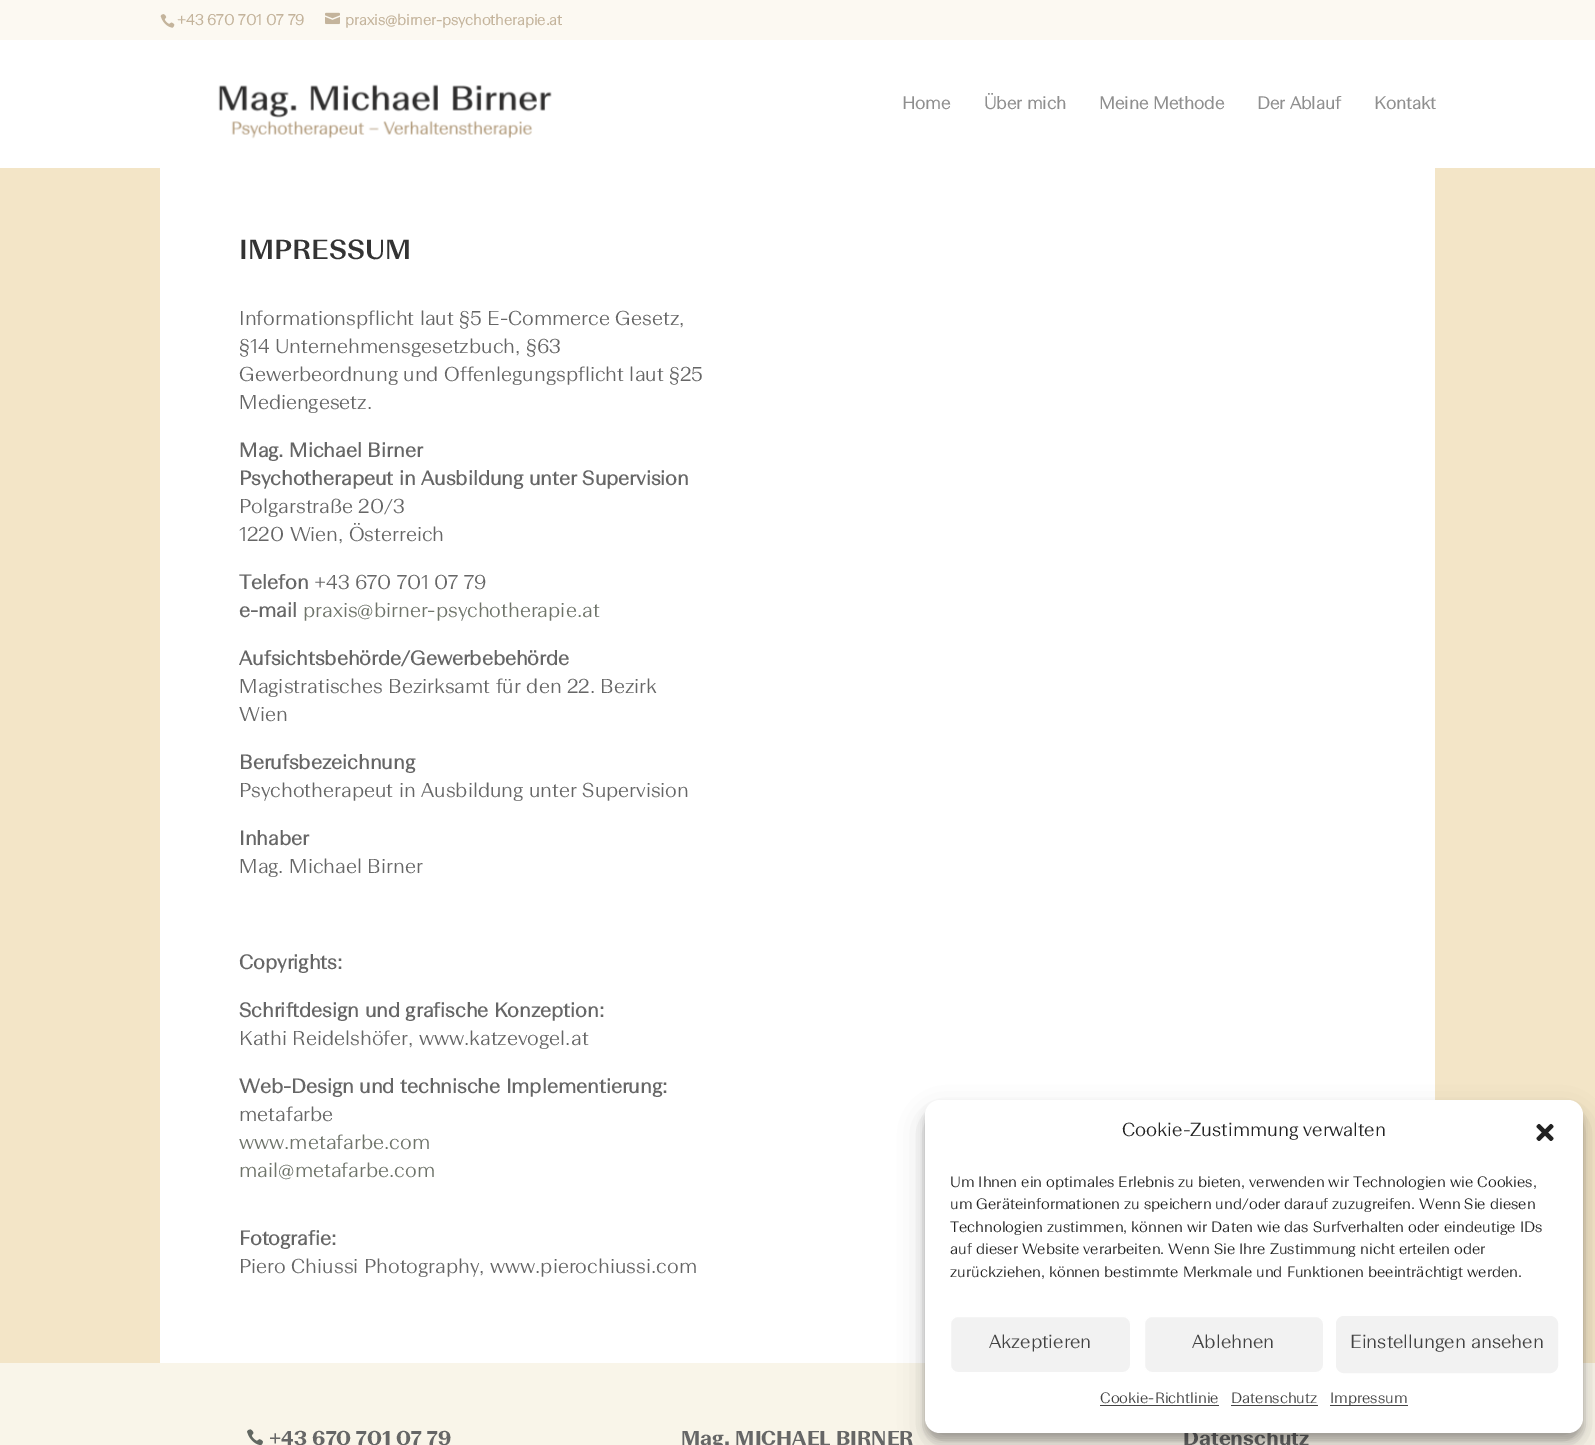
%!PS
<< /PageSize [1595 1445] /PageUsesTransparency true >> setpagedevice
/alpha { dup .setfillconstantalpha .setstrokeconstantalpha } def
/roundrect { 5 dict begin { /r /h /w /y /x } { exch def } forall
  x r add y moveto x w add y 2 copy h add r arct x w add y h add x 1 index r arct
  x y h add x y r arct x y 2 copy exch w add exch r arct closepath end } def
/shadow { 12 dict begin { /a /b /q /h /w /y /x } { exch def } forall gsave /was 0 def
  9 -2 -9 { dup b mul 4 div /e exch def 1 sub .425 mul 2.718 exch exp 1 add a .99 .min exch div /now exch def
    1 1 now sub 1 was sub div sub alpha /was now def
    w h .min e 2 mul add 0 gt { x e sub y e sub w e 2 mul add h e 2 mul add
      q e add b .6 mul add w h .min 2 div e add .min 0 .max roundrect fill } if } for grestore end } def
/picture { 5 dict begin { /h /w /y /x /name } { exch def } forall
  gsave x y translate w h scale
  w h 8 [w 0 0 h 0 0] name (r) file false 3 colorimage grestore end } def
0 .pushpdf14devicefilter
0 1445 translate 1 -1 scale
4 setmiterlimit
0.953 0.898 0.78 setrgbcolor
0 0 1595 1445 rectfill
0.988 0.976 0.949 setrgbcolor
0 0 1595 40 rectfill
(img1.rgb) 160 14 15 14 picture
/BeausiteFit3-Bold [15 0 0 -15 0 0] selectfont
0.769 0.706 0.612 setrgbcolor
177 25 moveto (+43 670 701 07 79) show
(img2.rgb) 325 12 15 13 picture
345 25 moveto (praxis@birner-psychotherapie.at) show
1 setgray
0 40 1595 128 rectfill
(img3.rgb) 218 84 334 55 picture
/BeausiteFit3-Bold [17.5 0 0 -17.5 0 0] selectfont
0.561 setgray
902 109 moveto (Home) show
984 109 moveto (Über mich) show
1099 109 moveto (Meine Methode) show
1257 109 moveto (Der Ablauf) show
1374 109 moveto (Kontakt) show
1 setgray
160 168 1275 1195 rectfill
/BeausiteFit-Medium [27.5 0 0 -27.5 0 0] selectfont
0.2 setgray
239 259 moveto (IMPRESSUM) show
/BeausiteFit-Light [20 0 0 -20 0 0] selectfont
0.4 setgray
239 325 moveto (Informationspflicht laut §5 E-Commerce Gesetz,) show
239 353 moveto (§14 Unternehmensgesetzbuch, §63) show
239 381 moveto (Gewerbeordnung und Offenlegungspflicht laut §25) show
239 409 moveto (Mediengesetz.) show
/BeausiteFit-Bold [20 0 0 -20 0 0] selectfont
239 457 moveto (Mag. Michael Birner) show
239 485 moveto (Psychotherapeut in Ausbildung unter Supervision) show
/BeausiteFit-Light [20 0 0 -20 0 0] selectfont
239 513 moveto (Polgarstraße 20/3) show
239 541 moveto (1220 Wien, Österreich) show
/BeausiteFit-Bold [20 0 0 -20 0 0] selectfont
239 589 moveto (Telefon) show
/BeausiteFit-Light [20 0 0 -20 0 0] selectfont
314 589 moveto (+43 670 701 07 79) show
/BeausiteFit-Bold [20 0 0 -20 0 0] selectfont
239 617 moveto (e-mail) show
/BeausiteFit-Light [20 0 0 -20 0 0] selectfont
0.435 0.455 0.416 setrgbcolor
303 617 moveto (praxis@birner-psychotherapie.at) show
/BeausiteFit-Bold [20 0 0 -20 0 0] selectfont
0.4 setgray
239 665 moveto (Aufsichtsbehörde/Gewerbebehörde) show
/BeausiteFit-Light [20 0 0 -20 0 0] selectfont
239 693 moveto (Magistratisches Bezirksamt für den 22. Bezirk) show
239 721 moveto (Wien) show
/BeausiteFit-Bold [20 0 0 -20 0 0] selectfont
239 769 moveto (Berufsbezeichnung) show
/BeausiteFit-Light [20 0 0 -20 0 0] selectfont
239 797 moveto (Psychotherapeut in Ausbildung unter Supervision) show
/BeausiteFit-Bold [20 0 0 -20 0 0] selectfont
239 845 moveto (Inhaber) show
/BeausiteFit-Light [20 0 0 -20 0 0] selectfont
239 873 moveto (Mag. Michael Birner) show
/BeausiteFit-Bold [20 0 0 -20 0 0] selectfont
239 969 moveto (Copyrights:) show
239 1017 moveto (Schriftdesign und grafische Konzeption:) show
/BeausiteFit-Light [20 0 0 -20 0 0] selectfont
239 1045 moveto (Kathi Reidelshöfer, www.katzevogel.at) show
/BeausiteFit-Bold [20 0 0 -20 0 0] selectfont
239 1093 moveto (Web-Design und technische Implementierung:) show
/BeausiteFit-Light [20 0 0 -20 0 0] selectfont
239 1121 moveto (metafarbe) show
0.435 0.455 0.416 setrgbcolor
239 1149 moveto (www.metafarbe.com) show
239 1177 moveto (mail@metafarbe.com) show
/BeausiteFit-Bold [20 0 0 -20 0 0] selectfont
0.4 setgray
239 1245 moveto (Fotografie:) show
/BeausiteFit-Light [20 0 0 -20 0 0] selectfont
239 1273 moveto (Piero Chiussi Photography, www.pierochiussi.com) show
0.976 0.961 0.914 setrgbcolor
0 1363 1595 82 rectfill
(img4.rgb) 247 1429 16 16 picture
/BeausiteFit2-Bold [20 0 0 -20 0 0] selectfont
0.4 setgray
269 1445 moveto (+43 670 701 07 79) show
681 1445 moveto (Mag. MICHAEL BIRNER) show
1183 1445 moveto (Datenschutz) show
0 setgray
925 1108 658 332 15 4 0.23 shadow
925 1113 658 332 15 12.5 0.19 shadow
1 setgray
925 1100 658 333 15 roundrect fill
/BeausiteFit-Light [18.75 0 0 -18.75 0 0] selectfont
0.133 setgray
1122 1136 moveto (Cookie-Zustimmung verwalten) show
(img5.rgb) 1536 1123 18 18 picture
/BeausiteFit-Light [15 0 0 -15 0 0] selectfont
950 1187 moveto (Um Ihnen ein optimales Erlebnis zu bieten, verwenden wir Technologien wie Cookies,) show
950 1209 moveto (um Geräteinformationen zu speichern und/oder darauf zuzugreifen. Wenn Sie diesen) show
950 1232 moveto (Technologien zustimmen, können wir Daten wie das Surfverhalten oder eindeutige IDs) show
950 1254 moveto (auf dieser Website verarbeiten. Wenn Sie Ihre Zustimmung nicht erteilen oder) show
950 1277 moveto (zurückziehen, können bestimmte Merkmale und Funktionen beeinträchtigt werden.) show
0.949 setgray
950.5 1316.5 180 56 7.5 roundrect gsave fill grestore
1 setgray
stroke
/BeausiteFit-Light [18.75 0 0 -18.75 0 0] selectfont
0.259 setgray
989 1348 moveto (Akzeptieren) show
0.949 setgray
1144.5 1316.5 179 56 7.5 roundrect gsave fill grestore
1 setgray
stroke
0.259 setgray
1192 1348 moveto (Ablehnen) show
0.949 setgray
1336.5 1316.5 221 56 7.5 roundrect gsave fill grestore
stroke
0.259 setgray
1350 1348 moveto (Einstellungen ansehen) show
/BeausiteFit-Light [15 0 0 -15 0 0] selectfont
1100 1403 moveto (Cookie-Richtlinie) show
1100 1405 119 1 rectfill
1231 1403 moveto (Datenschutz) show
1231 1405 87 1 rectfill
1330 1405 78 1 rectfill
1330 1403 moveto (Impressum) show
.poppdf14devicefilter showpage
